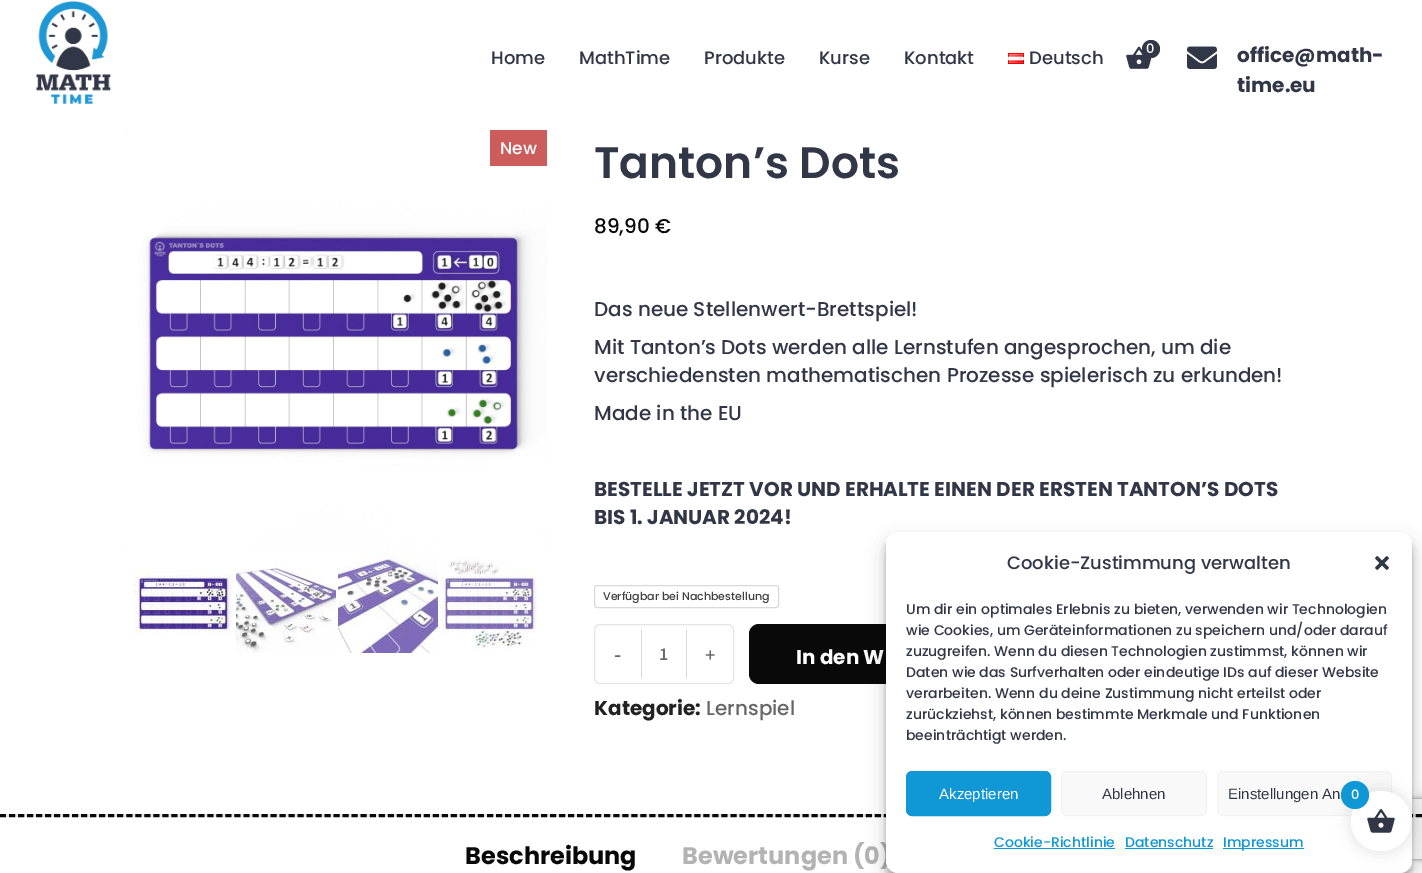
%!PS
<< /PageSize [1422 873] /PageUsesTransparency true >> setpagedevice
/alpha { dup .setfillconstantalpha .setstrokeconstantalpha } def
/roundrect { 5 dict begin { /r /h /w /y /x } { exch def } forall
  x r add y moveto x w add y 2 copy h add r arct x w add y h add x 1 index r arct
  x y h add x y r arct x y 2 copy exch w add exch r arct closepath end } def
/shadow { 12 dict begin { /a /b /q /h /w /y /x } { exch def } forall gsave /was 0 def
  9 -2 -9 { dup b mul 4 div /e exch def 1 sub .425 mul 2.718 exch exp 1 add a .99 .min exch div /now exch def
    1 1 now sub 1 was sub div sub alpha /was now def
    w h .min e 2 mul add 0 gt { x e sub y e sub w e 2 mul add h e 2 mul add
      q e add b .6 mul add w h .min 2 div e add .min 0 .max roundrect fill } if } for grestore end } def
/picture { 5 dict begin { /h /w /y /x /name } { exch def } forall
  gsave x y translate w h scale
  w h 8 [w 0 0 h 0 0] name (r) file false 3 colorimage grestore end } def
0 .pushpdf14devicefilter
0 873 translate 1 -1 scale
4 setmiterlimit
1 setgray
0 0 1422 873 rectfill
(img1.rgb) 36 1 75 103 picture
(img2.rgb) 1126 46 26 23 picture
0.196 0.216 0.282 setrgbcolor
newpath 1151 49 9 0 360 arc closepath fill
/Poppins-Medium [13 0 0 -13 0 0] selectfont
1 setgray
1146 53 moveto (0) show
/Poppins-Medium [18 0 0 -18 0 0] selectfont
0.196 0.216 0.282 setrgbcolor
491 64 moveto (Home) show
579 64 moveto (MathTime) show
704 64 moveto (Produkte) show
819 64 moveto (Kurse) show
904 64 moveto (Kontakt) show
(img3.rgb) 1008 53 16 11 picture
1029 64 moveto (Deutsch) show
(img4.rgb) 1187 46 30 23 picture
/Poppins-Bold [20 0 0 -20 0 0] selectfont
1237 62 moveto (office@math-) show
1237 92 moveto (time.eu) show
(img5.rgb) 126 130 421 421 picture
0.804 0.361 0.361 setrgbcolor
490 130 57 36 rectfill
/Poppins-Medium [17 0 0 -17 0 0] selectfont
1 setgray
500 154 moveto (New) show
(img6.rgb) 134 569 99 64 picture
(img7.rgb) 236 561 100 92 picture
(img8.rgb) 338 553 100 100 picture
(img9.rgb) 440 559 97 90 picture
/Poppins-SemiBold [44 0 0 -44 0 0] selectfont
0.196 0.216 0.282 setrgbcolor
594 178 moveto (Tanton’s Dots) show
/Poppins-Medium [20 0 0 -20 0 0] selectfont
0.035 setgray
594 233 moveto (89,90 €) show
0.196 0.216 0.282 setrgbcolor
594 316 moveto (Das neue Stellenwert-Brettspiel!) show
594 354 moveto (Mit Tanton’s Dots werden alle Lernstufen angesprochen, um die) show
594 382 moveto (verschiedensten mathematischen Prozesse spielerisch zu erkunden!) show
594 420 moveto (Made in the EU) show
/Poppins-Bold [20 0 0 -20 0 0] selectfont
594 496 moveto (BESTELLE JETZT VOR UND ERHALTE EINEN DER ERSTEN TANTON’S DOTS) show
594 524 moveto (BIS 1. JANUAR 2024!) show
0.851 setgray
594.5 585.5 184 22 2.5 roundrect stroke
/Poppins-Medium [11 0 0 -11 0 0] selectfont
0.251 setgray
603 600 moveto (Verfügbar bei Nachbestellung) show
0.902 setgray
594.5 624.5 139 59 5.5 roundrect stroke
/LiberationSans-Regular [22 0 0 -22 0 0] selectfont
0.4 setgray
614 662 moveto (-) show
0.851 setgray
686 630 1 48 rectfill
641 630 1 48 rectfill
/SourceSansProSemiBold-SemiBold [18 0 0 -18 0 0] selectfont
0.424 0.42 0.42 setrgbcolor
659 660 moveto (1) show
/LiberationSans-Regular [18 0 0 -18 0 0] selectfont
0.4 setgray
705 661 moveto (+) show
0.035 setgray
749 624 278 60 10 roundrect fill
/Poppins-Bold [20 0 0 -20 0 0] selectfont
1 setgray
796 664 moveto (In den W) show
0.133 setgray
594 715 moveto (Kategorie:) show
/Poppins-Medium [20 0 0 -20 0 0] selectfont
0.4 setgray
706 715 moveto (Lernspiel) show
0.902 setgray
0 814 1422 3 rectfill
0.035 setgray
3 setlinewidth
[6 3.02] 0 setdash
newpath 0 815.5 moveto 1422 815.5 lineto stroke
/Poppins-Bold [24 0 0 -24 0 0] selectfont
465 864 moveto (Beschreibung) show
0.702 setgray
682 864 moveto (Bewertungen \(0\)) show
0 setgray
886 538 526 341 12 3 0.23 shadow
886 542 526 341 12 10 0.19 shadow
gsave
newpath 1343 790 moveto 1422 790 lineto 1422 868 lineto 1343 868 lineto closepath 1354 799 moveto 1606 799 lineto 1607 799 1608 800 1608 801 curveto 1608 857 lineto 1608 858 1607 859 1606 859 curveto 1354 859 lineto 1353 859 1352 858 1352 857 curveto 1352 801 lineto 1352 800 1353 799 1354 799 curveto closepath eoclip newpath
0.502 setgray
1352 799 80 60 2 2.5 1 shadow
grestore
1 setgray
886 532 526 341 12 roundrect fill
/Poppins-Medium [18 0 0 -18 0 0] selectfont
0.196 0.216 0.282 setrgbcolor
1007 569 moveto (Cookie-Zustimmung verwalten) show
(img10.rgb) 1375 556 14 14 picture
/Poppins-Medium [14 0 0 -14 0 0] selectfont
906 614 moveto (Um dir ein optimales Erlebnis zu bieten, verwenden wir Technologien) show
906 635 moveto (wie Cookies, um Geräteinformationen zu speichern und/oder darauf) show
906 656 moveto (zuzugreifen. Wenn du diesen Technologien zustimmst, können wir) show
906 677 moveto (Daten wie das Surfverhalten oder eindeutige IDs auf dieser Website) show
906 698 moveto (verarbeiten. Wenn du deine Zustimmung nicht erteilst oder) show
906 719 moveto (zurückziehst, können bestimmte Merkmale und Funktionen) show
906 740 moveto (beeinträchtigt werden.) show
0.063 0.592 0.835 setrgbcolor
906.5 771.5 144 44 5.5 roundrect gsave fill grestore
1 setlinewidth
[] 0 setdash
stroke
/LiberationSans-Regular [15 0 0 -15 0 0] selectfont
1 setgray
939 799 moveto (Akzeptieren) show
0.976 setgray
1061.5 771.5 145 44 5.5 roundrect gsave fill grestore
0.949 setgray
stroke
0.196 0.216 0.282 setrgbcolor
1102 799 moveto (Ablehnen) show
0.976 setgray
1217.5 771.5 174 44 5.5 roundrect gsave fill grestore
0.949 setgray
stroke
0.196 0.216 0.282 setrgbcolor
1228 799 moveto (Einstellungen An) show
/Poppins-Medium [14 0 0 -14 0 0] selectfont
0.063 0.592 0.835 setrgbcolor
994 847 moveto (Cookie-Richtlinie) show
994 848 121 1 rectfill
1125 847 moveto (Datenschutz) show
1125 848 88 1 rectfill
1223 848 81 1 rectfill
1223 847 moveto (Impressum) show
0 setgray
1349 789 64 64 32 7.5 0.1 shadow
1422 792 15 76 0 5 0.1 shadow
1 setgray
newpath 1381 821 30 0 360 arc closepath fill
0.063 0.592 0.835 setrgbcolor
newpath 1355 795 14 0 360 arc closepath fill
/Poppins-Medium [13 0 0 -13 0 0] selectfont
1 setgray
1351 799 moveto (0) show
(img11.rgb) 1367 809 28 24 picture
.poppdf14devicefilter showpage
